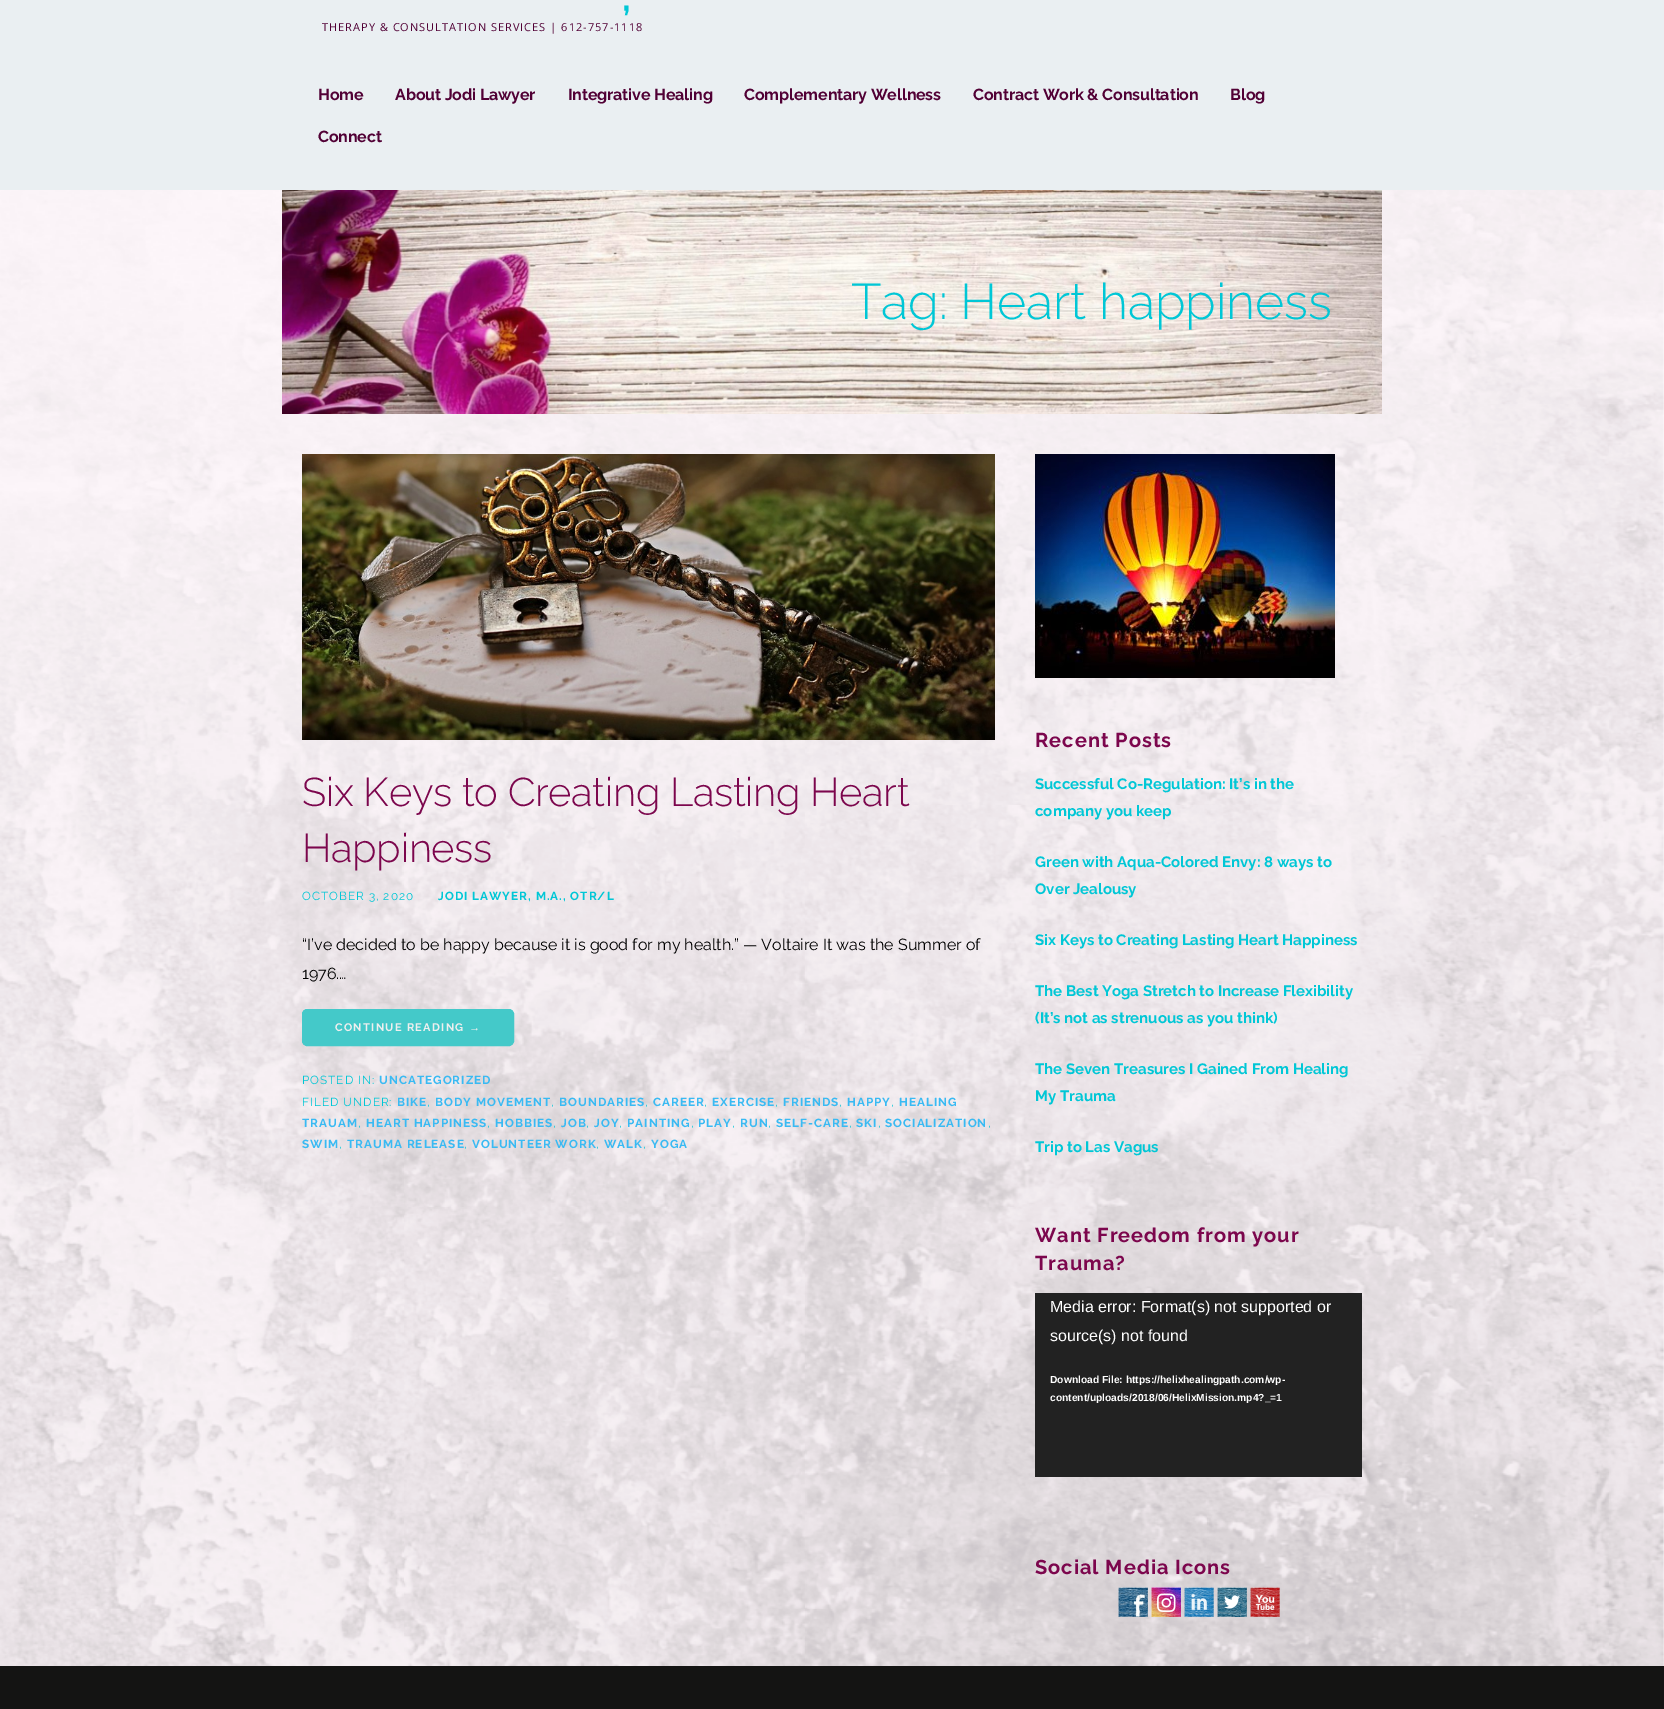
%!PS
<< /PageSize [1664 1709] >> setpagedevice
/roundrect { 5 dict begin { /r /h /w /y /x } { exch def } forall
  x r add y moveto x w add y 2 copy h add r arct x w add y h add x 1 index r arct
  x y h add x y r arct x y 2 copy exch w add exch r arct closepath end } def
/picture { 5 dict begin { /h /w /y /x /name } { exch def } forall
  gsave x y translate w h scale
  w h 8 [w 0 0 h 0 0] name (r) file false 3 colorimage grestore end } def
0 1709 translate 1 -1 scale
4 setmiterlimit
1 setgray
0 0 1664 1709 rectfill
(img1.rgb) 0 190 1664 1476 picture
0.918 0.937 0.949 setrgbcolor
0 0 1664 190 rectfill
/Raleway-Bold [38 0 0 -38 0 0] selectfont
0 0.78 0.839 setrgbcolor
622 11 moveto -2 0 (,) ashow
/OpenSans-Regular [11 0 0 -11 0 0] selectfont
0.318 0 0.208 setrgbcolor
322 31 moveto 1 0 (THERAPY & CONSULTATION SERVICES | 612-757-1118) ashow
/Raleway-Bold [16 0 0 -16 0 0] selectfont
318 100 moveto -0.15 0 (Home) ashow
395 100 moveto -0.15 0 (About Jodi Lawyer) ashow
568 100 moveto -0.15 0 (Integrative Healing) ashow
744 100 moveto -0.15 0 (Complementary Wellness) ashow
973 100 moveto -0.15 0 (Contract Work & Consultation) ashow
1230 100 moveto -0.15 0 (Blog) ashow
318 142 moveto -0.15 0 (Connect) ashow
(img2.rgb) 282 190 1100 224 picture
/Raleway-Light [50 0 0 -50 0 0] selectfont
0 0.78 0.839 setrgbcolor
851 319 moveto (Tag: Heart happiness) show
(img3.rgb) 302 454 693 286 picture
/Raleway-Light [40 0 0 -40 0 0] selectfont
0.486 0.024 0.302 setrgbcolor
302 806 moveto -0.3 0 (Six Keys to Creating Lasting Heart) ashow
302 862 moveto -0.3 0 (Happiness) ashow
/Raleway-Regular [11.75 0 0 -11.75 0 0] selectfont
0 0.78 0.839 setrgbcolor
302 900 moveto 1 0 (OCTOBER 3, 2020) ashow
/Raleway-Bold [11.75 0 0 -11.75 0 0] selectfont
438 900 moveto 1 0 (JODI LAWYER, M.A., OTR/L) ashow
/Raleway-Regular [16 0 0 -16 0 0] selectfont
0 setgray
302 950 moveto (“I’ve decided to be happy because it is good for my health.” — Voltaire It was the Summer of) show
302 979 moveto (1976.…) show
0.267 0.788 0.788 setrgbcolor
302.5 1009.5 211 36 4.5 roundrect gsave fill grestore
stroke
/Raleway-Bold [11 0 0 -11 0 0] selectfont
0.937 setgray
335 1031 moveto 1.3 0 (CONTINUE READING) ashow
/LiberationSans-Bold [11 0 0 -11 0 0] selectfont
469 1031 moveto 1.3 0 (→) ashow
/Raleway-Regular [11.75 0 0 -11.75 0 0] selectfont
0 0.78 0.839 setrgbcolor
302 1084 moveto 1 0 (POSTED IN:) ashow
/Raleway-Bold [11.75 0 0 -11.75 0 0] selectfont
0.224 0.729 0.953 setrgbcolor
379 1084 moveto 1 0 (UNCATEGORIZED) ashow
/Raleway-Regular [11.75 0 0 -11.75 0 0] selectfont
0 0.78 0.839 setrgbcolor
302 1106 moveto 1 0 (FILED UNDER:) ashow
/Raleway-Bold [11.75 0 0 -11.75 0 0] selectfont
0.224 0.729 0.953 setrgbcolor
397 1106 moveto 1 0 (BIKE) ashow
/Raleway-Regular [11.75 0 0 -11.75 0 0] selectfont
0 0.78 0.839 setrgbcolor
427 1106 moveto 1 0 (,) ashow
/Raleway-Bold [11.75 0 0 -11.75 0 0] selectfont
0.224 0.729 0.953 setrgbcolor
435 1106 moveto 1 0 (BODY MOVEMENT) ashow
/Raleway-Regular [11.75 0 0 -11.75 0 0] selectfont
0 0.78 0.839 setrgbcolor
551 1106 moveto 1 0 (,) ashow
/Raleway-Bold [11.75 0 0 -11.75 0 0] selectfont
0.224 0.729 0.953 setrgbcolor
559 1106 moveto 1 0 (BOUNDARIES) ashow
/Raleway-Regular [11.75 0 0 -11.75 0 0] selectfont
0 0.78 0.839 setrgbcolor
645 1106 moveto 1 0 (,) ashow
/Raleway-Bold [11.75 0 0 -11.75 0 0] selectfont
0.224 0.729 0.953 setrgbcolor
653 1106 moveto 1 0 (CAREER) ashow
/Raleway-Regular [11.75 0 0 -11.75 0 0] selectfont
0 0.78 0.839 setrgbcolor
704 1106 moveto 1 0 (,) ashow
/Raleway-Bold [11.75 0 0 -11.75 0 0] selectfont
0.224 0.729 0.953 setrgbcolor
712 1106 moveto 1 0 (EXERCISE) ashow
/Raleway-Regular [11.75 0 0 -11.75 0 0] selectfont
0 0.78 0.839 setrgbcolor
775 1106 moveto 1 0 (,) ashow
/Raleway-Bold [11.75 0 0 -11.75 0 0] selectfont
0.224 0.729 0.953 setrgbcolor
783 1106 moveto 1 0 (FRIENDS) ashow
/Raleway-Regular [11.75 0 0 -11.75 0 0] selectfont
0 0.78 0.839 setrgbcolor
839 1106 moveto 1 0 (,) ashow
/Raleway-Bold [11.75 0 0 -11.75 0 0] selectfont
0.224 0.729 0.953 setrgbcolor
847 1106 moveto 1 0 (HAPPY) ashow
/Raleway-Regular [11.75 0 0 -11.75 0 0] selectfont
0 0.78 0.839 setrgbcolor
891 1106 moveto 1 0 (,) ashow
/Raleway-Bold [11.75 0 0 -11.75 0 0] selectfont
0.224 0.729 0.953 setrgbcolor
899 1106 moveto 1 0 (HEALING) ashow
302 1127 moveto 1 0 (TRAUAM) ashow
/Raleway-Regular [11.75 0 0 -11.75 0 0] selectfont
0 0.78 0.839 setrgbcolor
358 1127 moveto 1 0 (,) ashow
/Raleway-Bold [11.75 0 0 -11.75 0 0] selectfont
0.224 0.729 0.953 setrgbcolor
366 1127 moveto 1 0 (HEART HAPPINESS) ashow
/Raleway-Regular [11.75 0 0 -11.75 0 0] selectfont
0 0.78 0.839 setrgbcolor
487 1127 moveto 1 0 (,) ashow
/Raleway-Bold [11.75 0 0 -11.75 0 0] selectfont
0.224 0.729 0.953 setrgbcolor
495 1127 moveto 1 0 (HOBBIES) ashow
/Raleway-Regular [11.75 0 0 -11.75 0 0] selectfont
0 0.78 0.839 setrgbcolor
553 1127 moveto 1 0 (,) ashow
/Raleway-Bold [11.75 0 0 -11.75 0 0] selectfont
0.224 0.729 0.953 setrgbcolor
561 1127 moveto 1 0 (JOB) ashow
/Raleway-Regular [11.75 0 0 -11.75 0 0] selectfont
0 0.78 0.839 setrgbcolor
586 1127 moveto 1 0 (,) ashow
/Raleway-Bold [11.75 0 0 -11.75 0 0] selectfont
0.224 0.729 0.953 setrgbcolor
594 1127 moveto 1 0 (JOY) ashow
/Raleway-Regular [11.75 0 0 -11.75 0 0] selectfont
0 0.78 0.839 setrgbcolor
619 1127 moveto 1 0 (,) ashow
/Raleway-Bold [11.75 0 0 -11.75 0 0] selectfont
0.224 0.729 0.953 setrgbcolor
627 1127 moveto 1 0 (PAINTING) ashow
/Raleway-Regular [11.75 0 0 -11.75 0 0] selectfont
0 0.78 0.839 setrgbcolor
691 1127 moveto 1 0 (,) ashow
/Raleway-Bold [11.75 0 0 -11.75 0 0] selectfont
0.224 0.729 0.953 setrgbcolor
698 1127 moveto 1 0 (PLAY) ashow
/Raleway-Regular [11.75 0 0 -11.75 0 0] selectfont
0 0.78 0.839 setrgbcolor
732 1127 moveto 1 0 (,) ashow
/Raleway-Bold [11.75 0 0 -11.75 0 0] selectfont
0.224 0.729 0.953 setrgbcolor
740 1127 moveto 1 0 (RUN) ashow
/Raleway-Regular [11.75 0 0 -11.75 0 0] selectfont
0 0.78 0.839 setrgbcolor
768 1127 moveto 1 0 (,) ashow
/Raleway-Bold [11.75 0 0 -11.75 0 0] selectfont
0.224 0.729 0.953 setrgbcolor
776 1127 moveto 1 0 (SELF-CARE) ashow
/Raleway-Regular [11.75 0 0 -11.75 0 0] selectfont
0 0.78 0.839 setrgbcolor
849 1127 moveto 1 0 (,) ashow
/Raleway-Bold [11.75 0 0 -11.75 0 0] selectfont
0.224 0.729 0.953 setrgbcolor
856 1127 moveto 1 0 (SKI) ashow
/Raleway-Regular [11.75 0 0 -11.75 0 0] selectfont
0 0.78 0.839 setrgbcolor
878 1127 moveto 1 0 (,) ashow
/Raleway-Bold [11.75 0 0 -11.75 0 0] selectfont
0.224 0.729 0.953 setrgbcolor
885 1127 moveto 1 0 (SOCIALIZATION) ashow
/Raleway-Regular [11.75 0 0 -11.75 0 0] selectfont
0 0.78 0.839 setrgbcolor
988 1127 moveto 1 0 (,) ashow
/Raleway-Bold [11.75 0 0 -11.75 0 0] selectfont
0.224 0.729 0.953 setrgbcolor
302 1148 moveto 1 0 (SWIM) ashow
/Raleway-Regular [11.75 0 0 -11.75 0 0] selectfont
0 0.78 0.839 setrgbcolor
339 1148 moveto 1 0 (,) ashow
/Raleway-Bold [11.75 0 0 -11.75 0 0] selectfont
0.224 0.729 0.953 setrgbcolor
347 1148 moveto 1 0 (TRAUMA RELEASE) ashow
/Raleway-Regular [11.75 0 0 -11.75 0 0] selectfont
0 0.78 0.839 setrgbcolor
464 1148 moveto 1 0 (,) ashow
/Raleway-Bold [11.75 0 0 -11.75 0 0] selectfont
0.224 0.729 0.953 setrgbcolor
472 1148 moveto 1 0 (VOLUNTEER WORK) ashow
/Raleway-Regular [11.75 0 0 -11.75 0 0] selectfont
0 0.78 0.839 setrgbcolor
596 1148 moveto 1 0 (,) ashow
/Raleway-Bold [11.75 0 0 -11.75 0 0] selectfont
0.224 0.729 0.953 setrgbcolor
604 1148 moveto 1 0 (WALK) ashow
/Raleway-Regular [11.75 0 0 -11.75 0 0] selectfont
0 0.78 0.839 setrgbcolor
643 1148 moveto 1 0 (,) ashow
/Raleway-Bold [11.75 0 0 -11.75 0 0] selectfont
0.224 0.729 0.953 setrgbcolor
651 1148 moveto 1 0 (YOGA) ashow
(img4.rgb) 1035 454 300 224 picture
/Raleway-Bold [20 0 0 -20 0 0] selectfont
0.486 0.024 0.302 setrgbcolor
1035 747 moveto 1 0 (Recent Posts) ashow
/Raleway-Bold [15 0 0 -15 0 0] selectfont
0 0.78 0.839 setrgbcolor
1035 789 moveto (Successful Co-Regulation: It’s in the) show
1035 816 moveto (company you keep) show
1035 867 moveto (Green with Aqua-Colored Envy: 8 ways to) show
1035 894 moveto (Over Jealousy) show
1035 945 moveto (Six Keys to Creating Lasting Heart Happiness) show
1035 996 moveto (The Best Yoga Stretch to Increase Flexibility) show
1035 1023 moveto (\(It’s not as strenuous as you think\)) show
1035 1074 moveto (The Seven Treasures I Gained From Healing) show
1035 1101 moveto (My Trauma) show
1035 1152 moveto (Trip to Las Vagus) show
/Raleway-Bold [20 0 0 -20 0 0] selectfont
0.486 0.024 0.302 setrgbcolor
1035 1242 moveto 1 0 (Want Freedom from your) ashow
1035 1270 moveto 1 0 (Trauma?) ashow
0.133 setgray
1035 1293 327 184 rectfill
/LiberationSans-Regular [16 0 0 -16 0 0] selectfont
1 setgray
1050 1312 moveto (Media error: Format\(s\) not supported or) show
1050 1341 moveto (source\(s\) not found) show
/LiberationSans-Bold [10.25 0 0 -10.25 0 0] selectfont
1050 1383 moveto (Download File: https://helixhealingpath.com/wp-) show
1050 1401 moveto (content/uploads/2018/06/HelixMission.mp4?_=1) show
/Raleway-Bold [20 0 0 -20 0 0] selectfont
0.486 0.024 0.302 setrgbcolor
1035 1574 moveto 1 0 (Social Media Icons) ashow
(img5.rgb) 1118 1587 30 30 picture
(img6.rgb) 1151 1587 30 30 picture
(img7.rgb) 1184 1587 30 30 picture
(img8.rgb) 1217 1587 30 30 picture
(img9.rgb) 1250 1587 30 30 picture
0.078 0.078 0.075 setrgbcolor
0 1666 1664 43 rectfill
showpage
